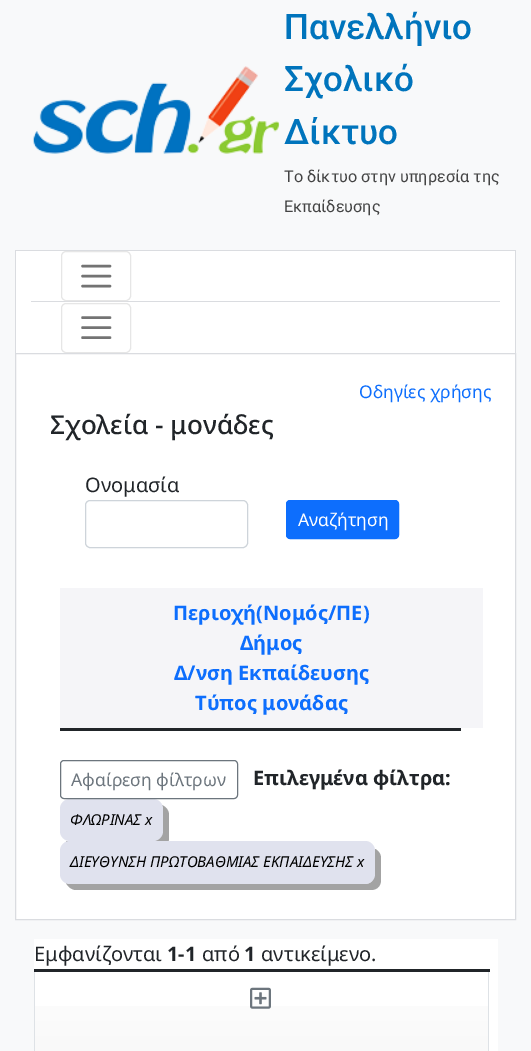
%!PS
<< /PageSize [531 1051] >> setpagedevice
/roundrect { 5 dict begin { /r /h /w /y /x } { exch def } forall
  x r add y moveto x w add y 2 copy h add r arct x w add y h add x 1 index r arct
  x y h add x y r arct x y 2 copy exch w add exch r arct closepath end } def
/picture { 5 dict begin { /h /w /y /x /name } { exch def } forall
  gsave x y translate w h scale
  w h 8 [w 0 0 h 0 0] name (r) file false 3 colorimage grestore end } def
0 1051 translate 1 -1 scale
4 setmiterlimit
0.973 0.976 0.98 setrgbcolor
0 0 531 1051 rectfill
(img1.rgb) 32 66 248 88 picture
/Roboto-Medium [35 0 0 -35 0 0] selectfont
0 0.455 0.737 setrgbcolor
284 39 moveto (Πανελλήνιο) show
284 91 moveto (Σχολικό) show
284 144 moveto (Δίκτυο) show
/Roboto-Regular [16.25 0 0 -16.25 0 0] selectfont
0.267 setgray
284 182 moveto (Το δίκτυο στην υπηρεσία της) show
284 212 moveto (Εκπαίδευσης) show
1 setgray
16 251 499 102 rectfill
0.855 0.863 0.878 setrgbcolor
15 250 501 1 rectfill
515 250 1 103 rectfill
15 250 1 103 rectfill
31 301 469 1 rectfill
0.902 setgray
61.5 251.5 69 49 4.5 roundrect stroke
0.451 setgray
2.5 setlinewidth
1 setlinecap
newpath 82.5 266 moveto 110 266 lineto 82.5 276 moveto 110 276 lineto 82.5 286 moveto 110 286 lineto stroke
0.902 setgray
1 setlinewidth
0 setlinecap
61.5 303.5 69 49 4.5 roundrect stroke
0.451 setgray
2.5 setlinewidth
1 setlinecap
newpath 82.5 317.5 moveto 110 317.5 lineto 82.5 327.5 moveto 110 327.5 lineto 82.5 337.5 moveto 110 337.5 lineto stroke
1 setgray
newpath 15.5 353.5 moveto 515.5 353.5 lineto 515.5 919.5 lineto 15.5 919.5 lineto closepath gsave fill grestore
0.855 0.863 0.878 setrgbcolor
1 setlinewidth
0 setlinecap
stroke
/NotoSans-Regular [17.5 0 0 -17.5 0 0] selectfont
0.051 0.431 0.992 setrgbcolor
359 398 moveto (Οδηγίες χρήσης) show
/NotoSans-Medium [26 0 0 -26 0 0] selectfont
0.129 0.145 0.161 setrgbcolor
50 434 moveto (Σχολεία - μονάδες) show
/NotoSans-Regular [20 0 0 -20 0 0] selectfont
85 492 moveto (Ονομασία) show
0.808 0.831 0.855 setrgbcolor
85.5 500.5 162 47 4.5 roundrect stroke
0.051 0.431 0.992 setrgbcolor
286.5 500.5 112 38 3.5 roundrect gsave fill grestore
stroke
/NotoSans-Regular [17.5 0 0 -17.5 0 0] selectfont
1 setgray
298 526 moveto (Αναζήτηση) show
0.961 0.961 0.973 setrgbcolor
60 588 423 140 rectfill
/NotoSans-Bold [20 0 0 -20 0 0] selectfont
0.051 0.431 0.992 setrgbcolor
173 620 moveto (Περιοχή\(Νομός/ΠΕ\)) show
240 650 moveto (Δήμος) show
174 680 moveto (Δ/νση Εκπαίδευσης) show
195 710 moveto (Τύπος μονάδας) show
0.129 0.145 0.161 setrgbcolor
60 728 401 3 rectfill
253 785 moveto (Επιλεγμένα φίλτρα:) show
0.639 setgray
newpath 66 841 moveto 67 845 71 848 76 848 curveto 159 848 lineto 165 848 169 844 169 838 curveto 169 815 lineto 169 810 166 807 162 805 curveto 162 809 lineto 162 831 lineto 162 837 158 841 152 841 curveto 70 841 lineto closepath fill
0.878 0.886 0.933 setrgbcolor
60 799 103 42 10 roundrect fill
/NotoSans-Italic [15 0 0 -15 0 0] selectfont
0 setgray
70 825 moveto (ΦΛΩΡΙΝΑΣ x) show
0.639 setgray
newpath 66 883 moveto 68 887 72 890 76 890 curveto 371 890 lineto 377 890 381 886 381 880 curveto 381 858 lineto 381 854 378 850 375 849 curveto 375 866 lineto 375 874 375 884 365 884 curveto 70 884 lineto closepath fill
0.878 0.886 0.933 setrgbcolor
60 841 315 43 10 roundrect fill
0 setgray
70 867 moveto (ΔΙΕΥΘΥΝΣΗ ΠΡΩΤΟΒΑΘΜΙΑΣ ΕΚΠΑΙΔΕΥΣΗΣ x) show
0.424 0.459 0.49 setrgbcolor
60.5 760.5 177 38 3.5 roundrect stroke
/NotoSans-Regular [17.5 0 0 -17.5 0 0] selectfont
71 786 moveto (Αφαίρεση φίλτρων) show
1 setgray
34 939 464 112 rectfill
/NotoSans-Regular [20 0 0 -20 0 0] selectfont
0.129 0.145 0.161 setrgbcolor
34 961 moveto (Εμφανίζονται) show
/NotoSans-Bold [20 0 0 -20 0 0] selectfont
167 961 moveto (1-1) show
/NotoSans-Regular [20 0 0 -20 0 0] selectfont
202 961 moveto (από) show
/NotoSans-Bold [20 0 0 -20 0 0] selectfont
244 961 moveto (1) show
/NotoSans-Regular [20 0 0 -20 0 0] selectfont
261 961 moveto (αντικείμενο.) show
gsave newpath 35 1006 moveto 488 1006 lineto 488 1051 lineto 35 1051 lineto closepath clip newpath
<< /ShadingType 2 /ColorSpace /DeviceRGB /Coords [261 973 261 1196] /Extend [true true] /Function << /FunctionType 2 /Domain [0 1] /C0 [1 1 1] /C1 [0.933 0.933 0.933] /N 1 >> >> shfill grestore
0.871 0.886 0.902 setrgbcolor
488 971 1 80 rectfill
34 971 1 80 rectfill
0.129 0.145 0.161 setrgbcolor
34 969 456 3 rectfill
(img2.rgb) 250 987 21 22 picture
showpage
